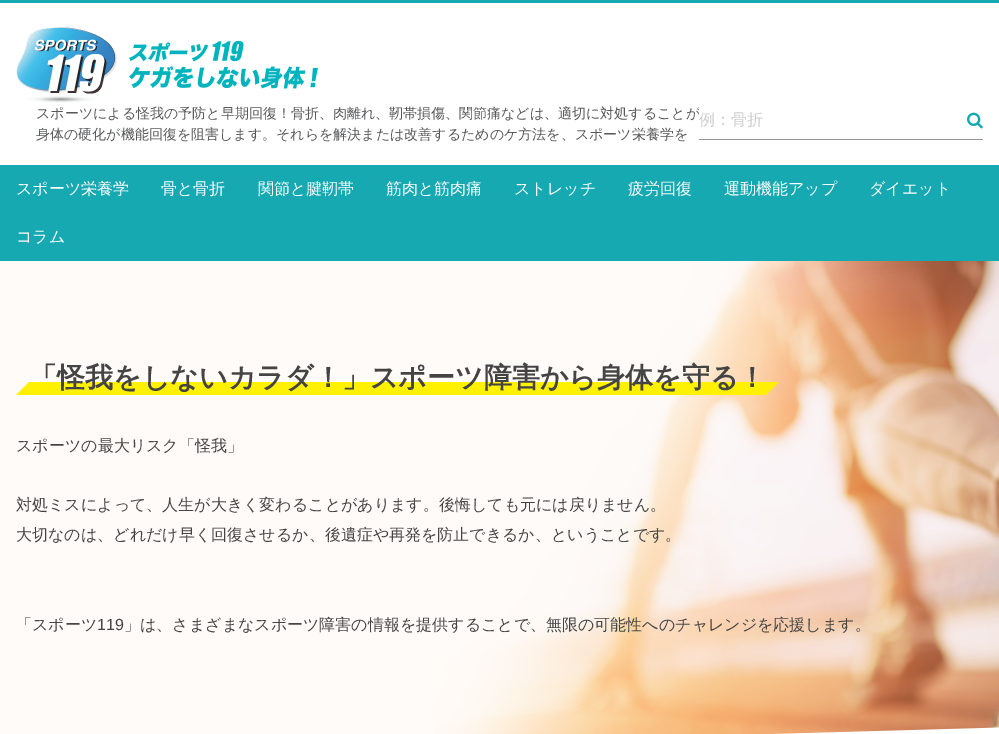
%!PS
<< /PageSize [999 734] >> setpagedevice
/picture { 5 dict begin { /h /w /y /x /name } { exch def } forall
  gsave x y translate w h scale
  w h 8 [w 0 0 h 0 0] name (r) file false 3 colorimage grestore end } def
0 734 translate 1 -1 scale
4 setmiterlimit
1 setgray
0 0 999 734 rectfill
0.086 0.663 0.698 setrgbcolor
0 0 999 3 rectfill
(img1.rgb) 16 27 302 76 picture
/WenQuanYiZenHei-Medium [14 0 0 -14 0 0] selectfont
0.341 0.345 0.353 setrgbcolor
36 118 moveto (スポーツによる怪我の予防と早期回復！骨折、肉離れ、靭帯損傷、関節痛などは、適切に対処することが) show
36 139 moveto (身体の硬化が機能回復を阻害します。それらを解決または改善するためのケ方法を、スポーツ栄養学を) show
1 setgray
699 108 1 7 rectfill
0.584 setgray
699 139 284 1 rectfill
/WenQuanYiZenHei-Medium [16 0 0 -16 0 0] selectfont
0.804 setgray
699 125 moveto (例：骨折) show
(img2.rgb) 967 112 16 17 picture
0.086 0.663 0.698 setrgbcolor
0 165 999 96 rectfill
1 setgray
16 194 moveto (スポーツ栄養学) show
161 194 moveto (骨と骨折) show
258 194 moveto (関節と腱靭帯) show
386 194 moveto (筋肉と筋肉痛) show
514 194 moveto (ストレッチ) show
628 194 moveto (疲労回復) show
724 194 moveto (運動機能アップ) show
869 194 moveto (ダイエット) show
16 242 moveto (コラム) show
1 0.984 0.973 setrgbcolor
0 261 433 473 rectfill
(img3.rgb) 433 261 566 473 picture
1 0.945 0 setrgbcolor
29 382 730 13 rectfill
1 0.937 0 setrgbcolor
newpath 29 395 moveto 16 395 lineto 29 382 lineto closepath fill
/WenQuanYiZenHei-Bold [28 0 0 -28 0 0] selectfont
0.267 setgray
29 387 moveto (「怪我をしないカラダ！」スポーツ障害から身体を守る！) show
1 0.937 0 setrgbcolor
newpath 759 382 moveto 779 382 lineto 766 395 lineto 759 395 lineto closepath fill
/WenQuanYiZenHei-Medium [16 0 0 -16 0 0] selectfont
0.267 setgray
16 451 moveto (スポーツの最大リスク「怪我」) show
16 510 moveto (対処ミスによって、人生が大きく変わることがあります。後悔しても元には戻りません。) show
16 540 moveto (大切なのは、どれだけ早く回復させるか、後遺症や再発を防止できるか、ということです。) show
16 630 moveto (「スポーツ) show
/LiberationSans-Regular [16 0 0 -16 0 0] selectfont
97 630 moveto (119) show
/WenQuanYiZenHei-Medium [16 0 0 -16 0 0] selectfont
124 630 moveto (」は、さまざまなスポーツ障害の情報を提供することで、無限の可能性へのチャレンジを応援します。) show
showpage
